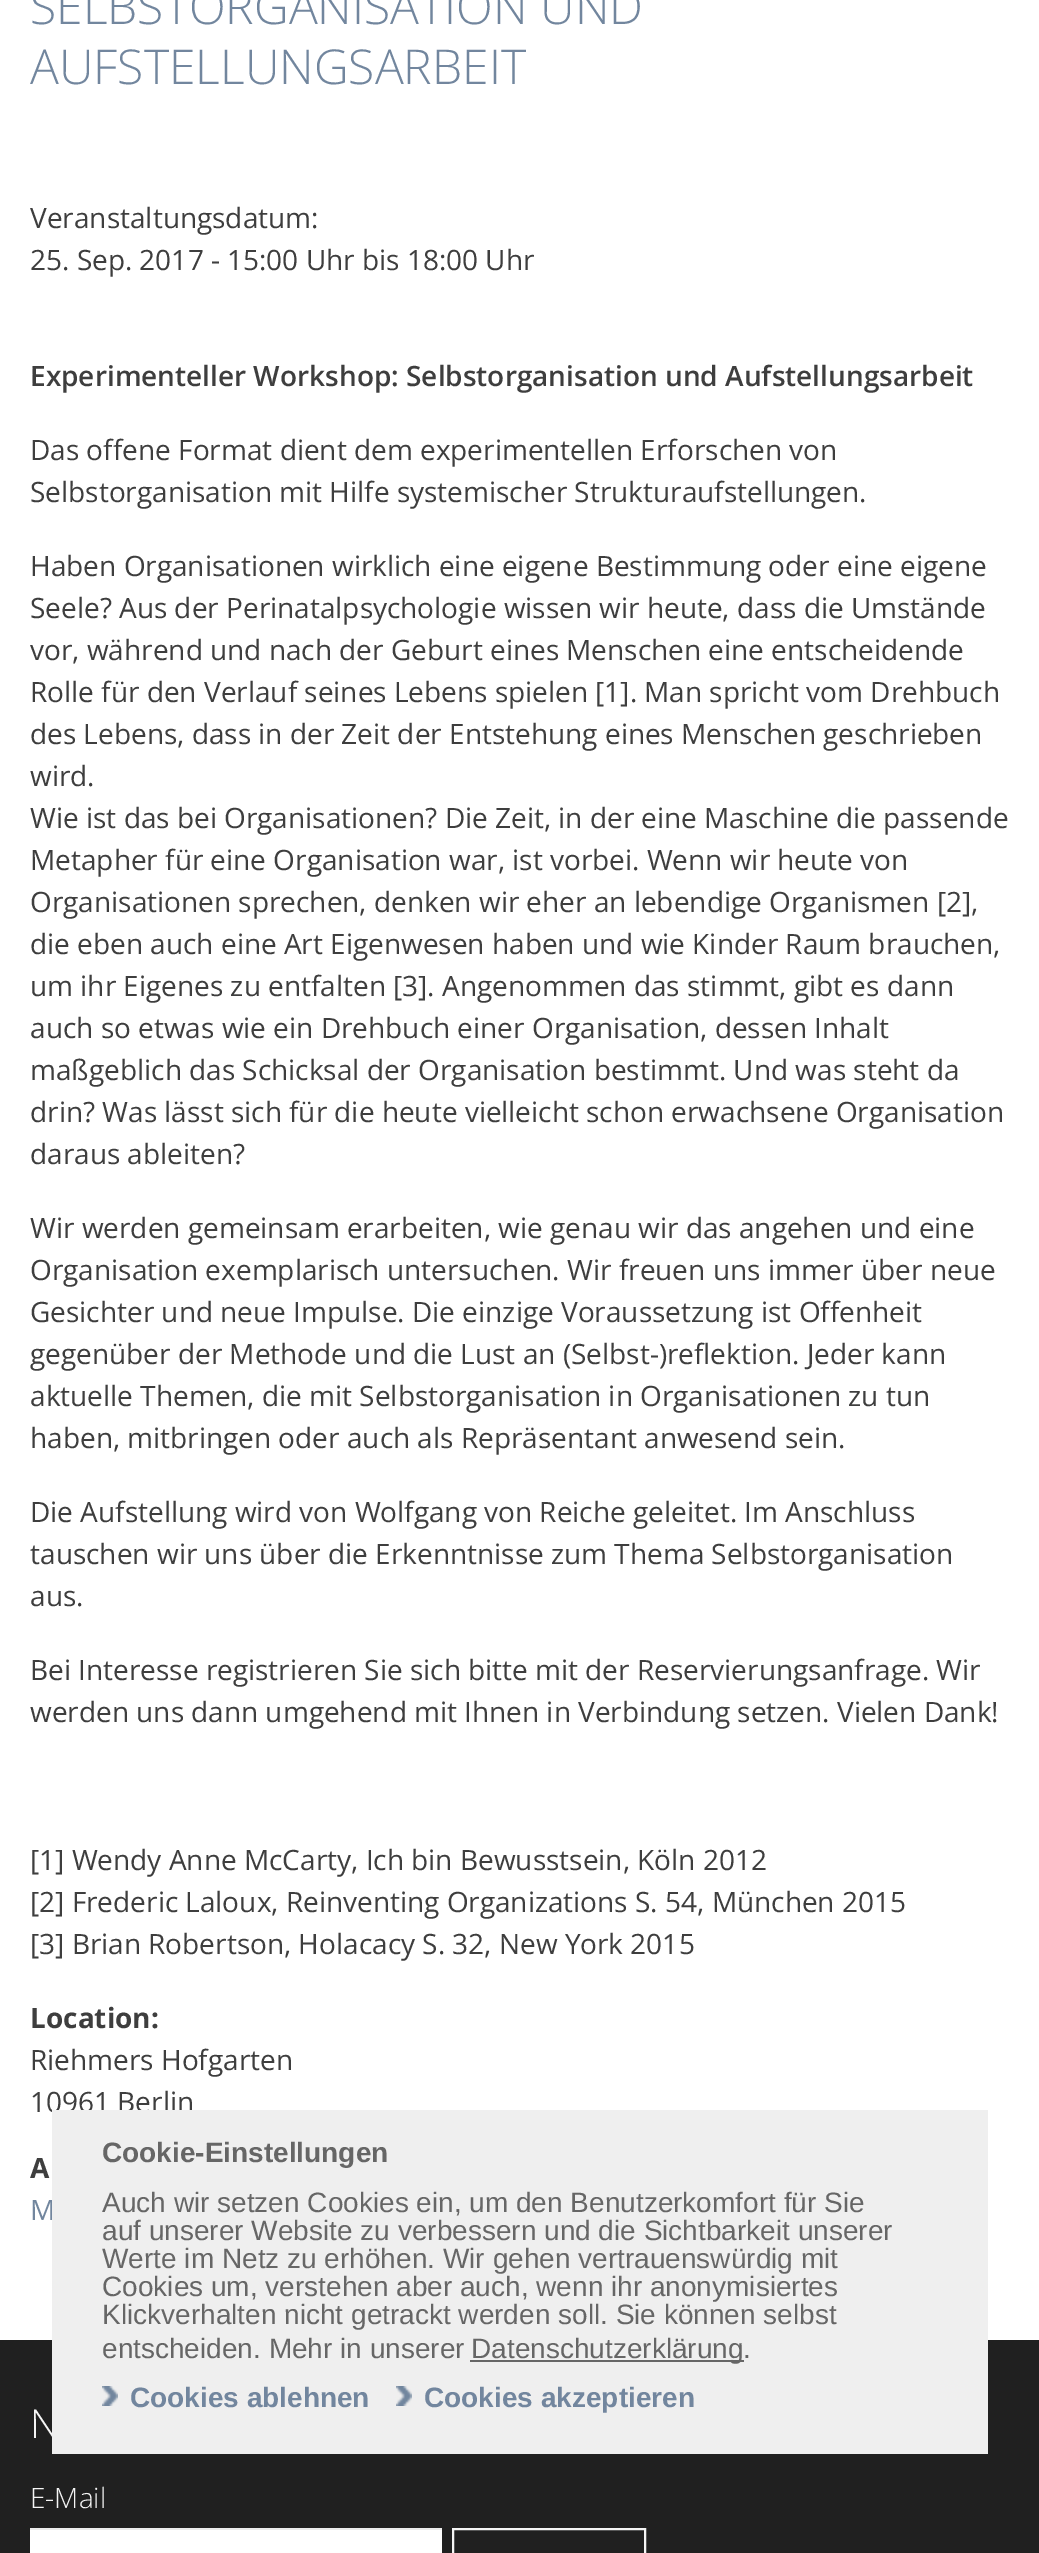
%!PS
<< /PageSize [1039 2553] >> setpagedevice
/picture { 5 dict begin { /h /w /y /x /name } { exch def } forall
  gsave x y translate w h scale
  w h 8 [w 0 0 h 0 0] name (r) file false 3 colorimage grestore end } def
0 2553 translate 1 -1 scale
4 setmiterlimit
1 setgray
0 0 1039 2553 rectfill
/OpenSans-Light [48 0 0 -48 0 0] selectfont
0.447 0.525 0.62 setrgbcolor
30 24 moveto (SELBSTORGANISATION UND) show
30 84 moveto (AUFSTELLUNGSARBEIT) show
/OpenSans-Regular [28 0 0 -28 0 0] selectfont
0.243 setgray
30 228 moveto (Veranstaltungsdatum:) show
30 270 moveto (25. Sep. 2017 - 15:00 Uhr bis 18:00 Uhr) show
/OpenSans-SemiBold [28 0 0 -28 0 0] selectfont
30 386 moveto (Experimenteller Workshop: Selbstorganisation und Aufstellungsarbeit) show
/OpenSans-Regular [28 0 0 -28 0 0] selectfont
30 460 moveto (Das offene Format dient dem experimentellen Erforschen von) show
30 502 moveto (Selbstorganisation mit Hilfe systemischer Strukturaufstellungen.) show
30 576 moveto (Haben Organisationen wirklich eine eigene Bestimmung oder eine eigene) show
30 618 moveto (Seele? Aus der Perinatalpsychologie wissen wir heute, dass die Umstände) show
30 660 moveto (vor, während und nach der Geburt eines Menschen eine entscheidende) show
30 702 moveto (Rolle für den Verlauf seines Lebens spielen [1]. Man spricht vom Drehbuch) show
30 744 moveto (des Lebens, dass in der Zeit der Entstehung eines Menschen geschrieben) show
30 786 moveto (wird.) show
30 828 moveto (Wie ist das bei Organisationen? Die Zeit, in der eine Maschine die passende) show
30 870 moveto (Metapher für eine Organisation war, ist vorbei. Wenn wir heute von) show
30 912 moveto (Organisationen sprechen, denken wir eher an lebendige Organismen [2],) show
30 954 moveto (die eben auch eine Art Eigenwesen haben und wie Kinder Raum brauchen,) show
30 996 moveto (um ihr Eigenes zu entfalten [3]. Angenommen das stimmt, gibt es dann) show
30 1038 moveto (auch so etwas wie ein Drehbuch einer Organisation, dessen Inhalt) show
30 1080 moveto (maßgeblich das Schicksal der Organisation bestimmt. Und was steht da) show
30 1122 moveto (drin? Was lässt sich für die heute vielleicht schon erwachsene Organisation) show
30 1164 moveto (daraus ableiten?) show
30 1238 moveto (Wir werden gemeinsam erarbeiten, wie genau wir das angehen und eine) show
30 1280 moveto (Organisation exemplarisch untersuchen. Wir freuen uns immer über neue) show
30 1322 moveto (Gesichter und neue Impulse. Die einzige Voraussetzung ist Offenheit) show
30 1364 moveto (gegenüber der Methode und die Lust an \(Selbst-\)reflektion. Jeder kann) show
30 1406 moveto (aktuelle Themen, die mit Selbstorganisation in Organisationen zu tun) show
30 1448 moveto (haben, mitbringen oder auch als Repräsentant anwesend sein.) show
30 1522 moveto (Die Aufstellung wird von Wolfgang von Reiche geleitet. Im Anschluss) show
30 1564 moveto (tauschen wir uns über die Erkenntnisse zum Thema Selbstorganisation) show
30 1606 moveto (aus.) show
30 1680 moveto (Bei Interesse registrieren Sie sich bitte mit der Reservierungsanfrage. Wir) show
30 1722 moveto (werden uns dann umgehend mit Ihnen in Verbindung setzen. Vielen Dank!) show
30 1870 moveto ([1] Wendy Anne McCarty, Ich bin Bewusstsein, Köln 2012) show
30 1912 moveto ([2] Frederic Laloux, Reinventing Organizations S. 54, München 2015) show
30 1954 moveto ([3] Brian Robertson, Holacacy S. 32, New York 2015) show
/OpenSans-Bold [28 0 0 -28 0 0] selectfont
30 2028 moveto (Location:) show
/OpenSans-Regular [28 0 0 -28 0 0] selectfont
30 2070 moveto (Riehmers Hofgarten) show
30 2112 moveto (10961 Berlin) show
/OpenSans-Bold [28 0 0 -28 0 0] selectfont
30 2178 moveto (A) show
/OpenSans-Regular [28 0 0 -28 0 0] selectfont
0.447 0.525 0.62 setrgbcolor
30 2220 moveto (M) show
0.125 setgray
0 2340 1039 213 rectfill
/OpenSans-Light [40 0 0 -40 0 0] selectfont
0.961 setgray
30 2438 moveto (N) show
0.937 setgray
52 2110 936 344 rectfill
/LiberationSans-Bold [28 0 0 -28 0 0] selectfont
0.4 setgray
102 2162 moveto (Cookie-Einstellungen) show
/LiberationSans-Regular [28 0 0 -28 0 0] selectfont
102 2212 moveto (Auch wir setzen Cookies ein, um den Benutzerkomfort für Sie) show
102 2240 moveto (auf unserer Website zu verbessern und die Sichtbarkeit unserer) show
102 2268 moveto (Werte im Netz zu erhöhen. Wir gehen vertrauenswürdig mit) show
102 2296 moveto (Cookies um, verstehen aber auch, wenn ihr anonymisiertes) show
102 2324 moveto (Klickverhalten nicht getrackt werden soll. Sie können selbst) show
102 2358 moveto (entscheiden. Mehr in unserer) show
470 2360 274 2 rectfill
471 2358 moveto (Datenschutzerklärung.) show
(img1.rgb) 102 2386 16 20 picture
/LiberationSans-Bold [28 0 0 -28 0 0] selectfont
0.447 0.525 0.62 setrgbcolor
130 2407 moveto (Cookies ablehnen) show
(img1.rgb) 396 2386 16 20 picture
424 2407 moveto (Cookies akzeptieren) show
/OpenSans-Light [28 0 0 -28 0 0] selectfont
0.961 setgray
30 2508 moveto (E-Mail) show
1 setgray
30 2530 412 23 rectfill
0.925 setgray
30 2528 412 2 rectfill
0.961 setgray
2 setlinewidth
453 2529 192 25 rectstroke
showpage
